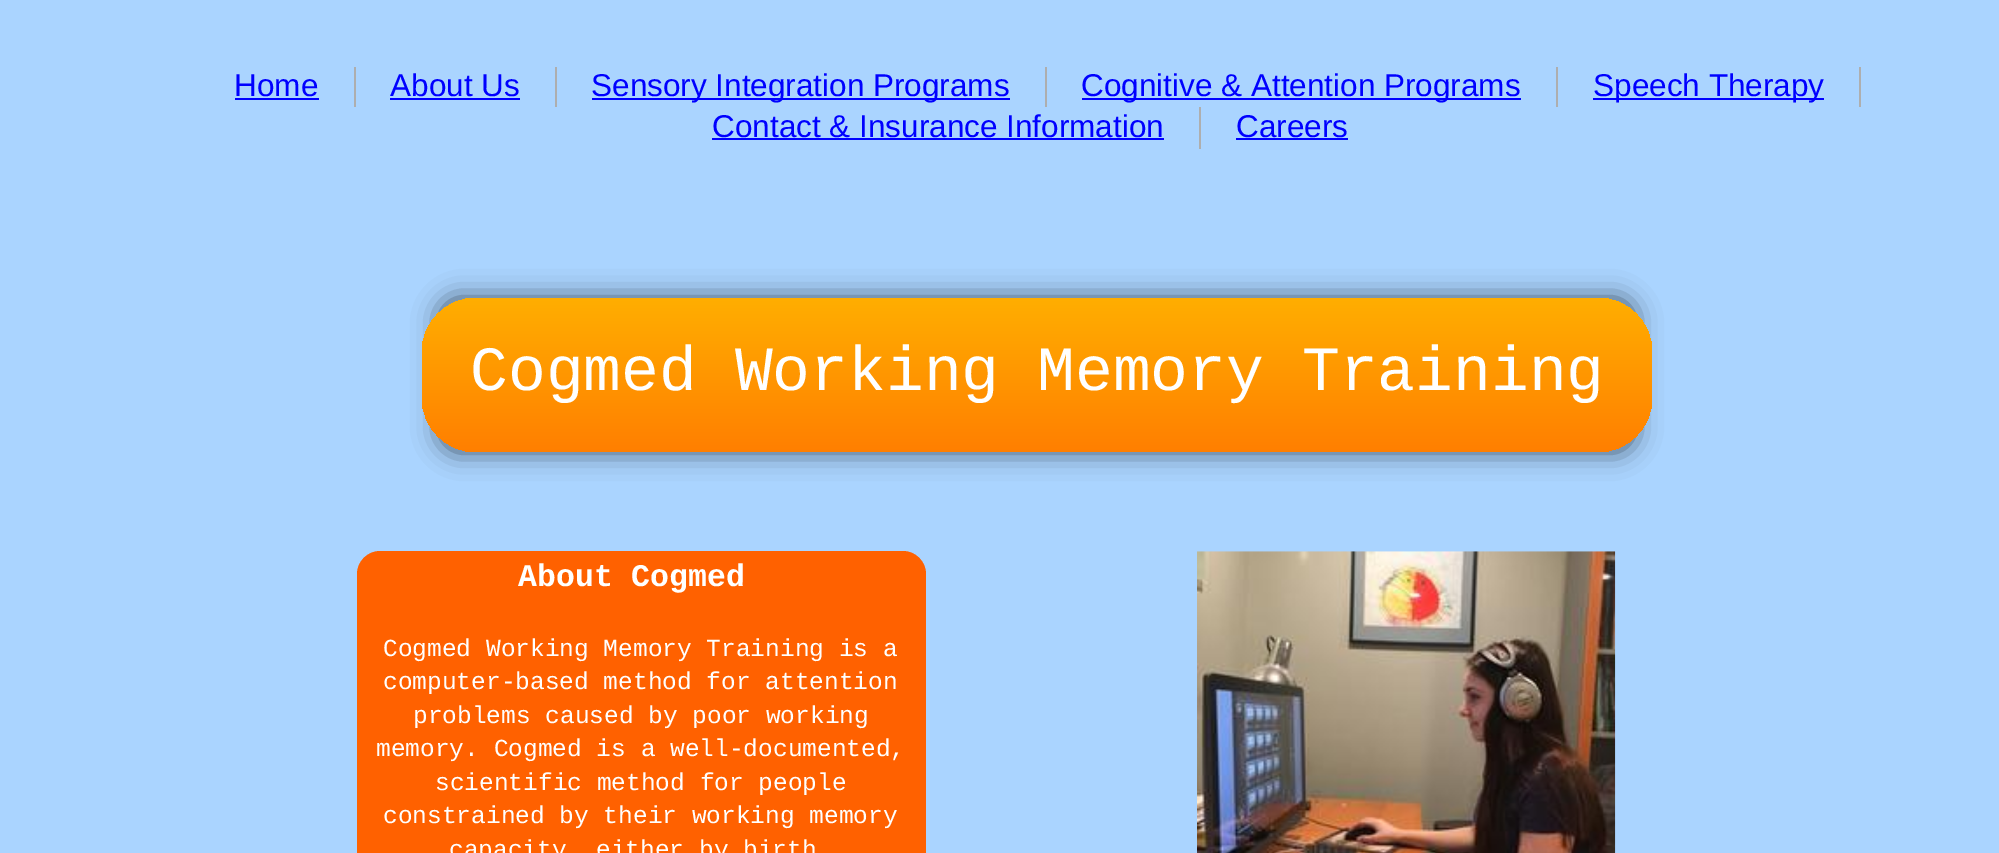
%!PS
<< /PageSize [1999 853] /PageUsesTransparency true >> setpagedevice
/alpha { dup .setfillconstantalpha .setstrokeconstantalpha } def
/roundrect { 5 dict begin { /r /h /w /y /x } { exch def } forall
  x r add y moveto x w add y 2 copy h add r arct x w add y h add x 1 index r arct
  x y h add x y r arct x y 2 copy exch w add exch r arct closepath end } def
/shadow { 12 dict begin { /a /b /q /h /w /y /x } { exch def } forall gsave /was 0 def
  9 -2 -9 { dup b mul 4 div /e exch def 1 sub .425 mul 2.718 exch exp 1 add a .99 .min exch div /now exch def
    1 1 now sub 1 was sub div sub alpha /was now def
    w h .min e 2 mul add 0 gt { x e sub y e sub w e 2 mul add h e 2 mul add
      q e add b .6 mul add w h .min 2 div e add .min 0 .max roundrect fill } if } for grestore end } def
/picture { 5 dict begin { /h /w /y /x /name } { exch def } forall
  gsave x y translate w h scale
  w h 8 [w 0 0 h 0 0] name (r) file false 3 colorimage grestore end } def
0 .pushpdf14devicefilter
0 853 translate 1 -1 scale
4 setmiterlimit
0.667 0.831 1 setrgbcolor
0 0 1999 853 rectfill
0.682 setgray
354 67 2 40 rectfill
/LiberationSans-Regular [31.5 0 0 -31.5 0 0] selectfont
0 0 1 setrgbcolor
234 96 moveto (Home) show
235 98 84 2 rectfill
0.682 setgray
555 67 2 40 rectfill
0 0 1 setrgbcolor
390 96 moveto (About Us) show
390 98 130 2 rectfill
0.682 setgray
1045 67 2 40 rectfill
0 0 1 setrgbcolor
592 98 418 2 rectfill
591 96 moveto (Sensory Integration Programs) show
0.682 setgray
1556 67 2 40 rectfill
0 0 1 setrgbcolor
1082 98 439 2 rectfill
1081 96 moveto (Cognitive & Attention Programs) show
0.682 setgray
1859 67 2 40 rectfill
0 0 1 setrgbcolor
1593 98 231 2 rectfill
1593 96 moveto (Speech Therapy) show
0.682 setgray
1199 107 2 42 rectfill
0 0 1 setrgbcolor
712 137 moveto (Contact & Insurance Information) show
712 138 452 2 rectfill
1236 137 moveto (Careers) show
1236 138 112 2 rectfill
0 setgray
439 298 1196 154 18 13 0.6 shadow
gsave 422 298 1230 154 54 roundrect clip newpath
<< /ShadingType 2 /ColorSpace /DeviceRGB /Coords [1037 297 1037 452] /Extend [true true] /Function << /FunctionType 2 /Domain [0 1] /C0 [1 0.682 0] /C1 [1 0.498 0] /N 1 >> >> shfill grestore
/LiberationMono-Regular [63 0 0 -63 0 0] selectfont
1 setgray
470 390 moveto (Cogmed Working Memory Training) show
1 0.38 0 setrgbcolor
newpath 380 551 moveto 903 551 lineto 915.5 551 926 561.5 926 574 curveto 926 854 lineto 357 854 lineto 357 574 lineto 357 561.5 367.5 551 380 551 curveto closepath fill
/LiberationMono-Bold [31.5 0 0 -31.5 0 0] selectfont
1 setgray
518 586 moveto (About Cogmed) show
/LiberationMono-Regular [24.5 0 0 -24.5 0 0] selectfont
383 656 moveto (Cogmed Working Memory Training is a) show
383 689 moveto (computer-based method for attention) show
413 723 moveto (problems caused by poor working) show
376 756 moveto (memory. Cogmed is a well-documented,) show
435 790 moveto (scientific method for people) show
383 823 moveto (constrained by their working memory) show
449 857 moveto (capacity, either by birth) show
(img1.rgb) 1197 551 419 302 picture
.poppdf14devicefilter showpage
